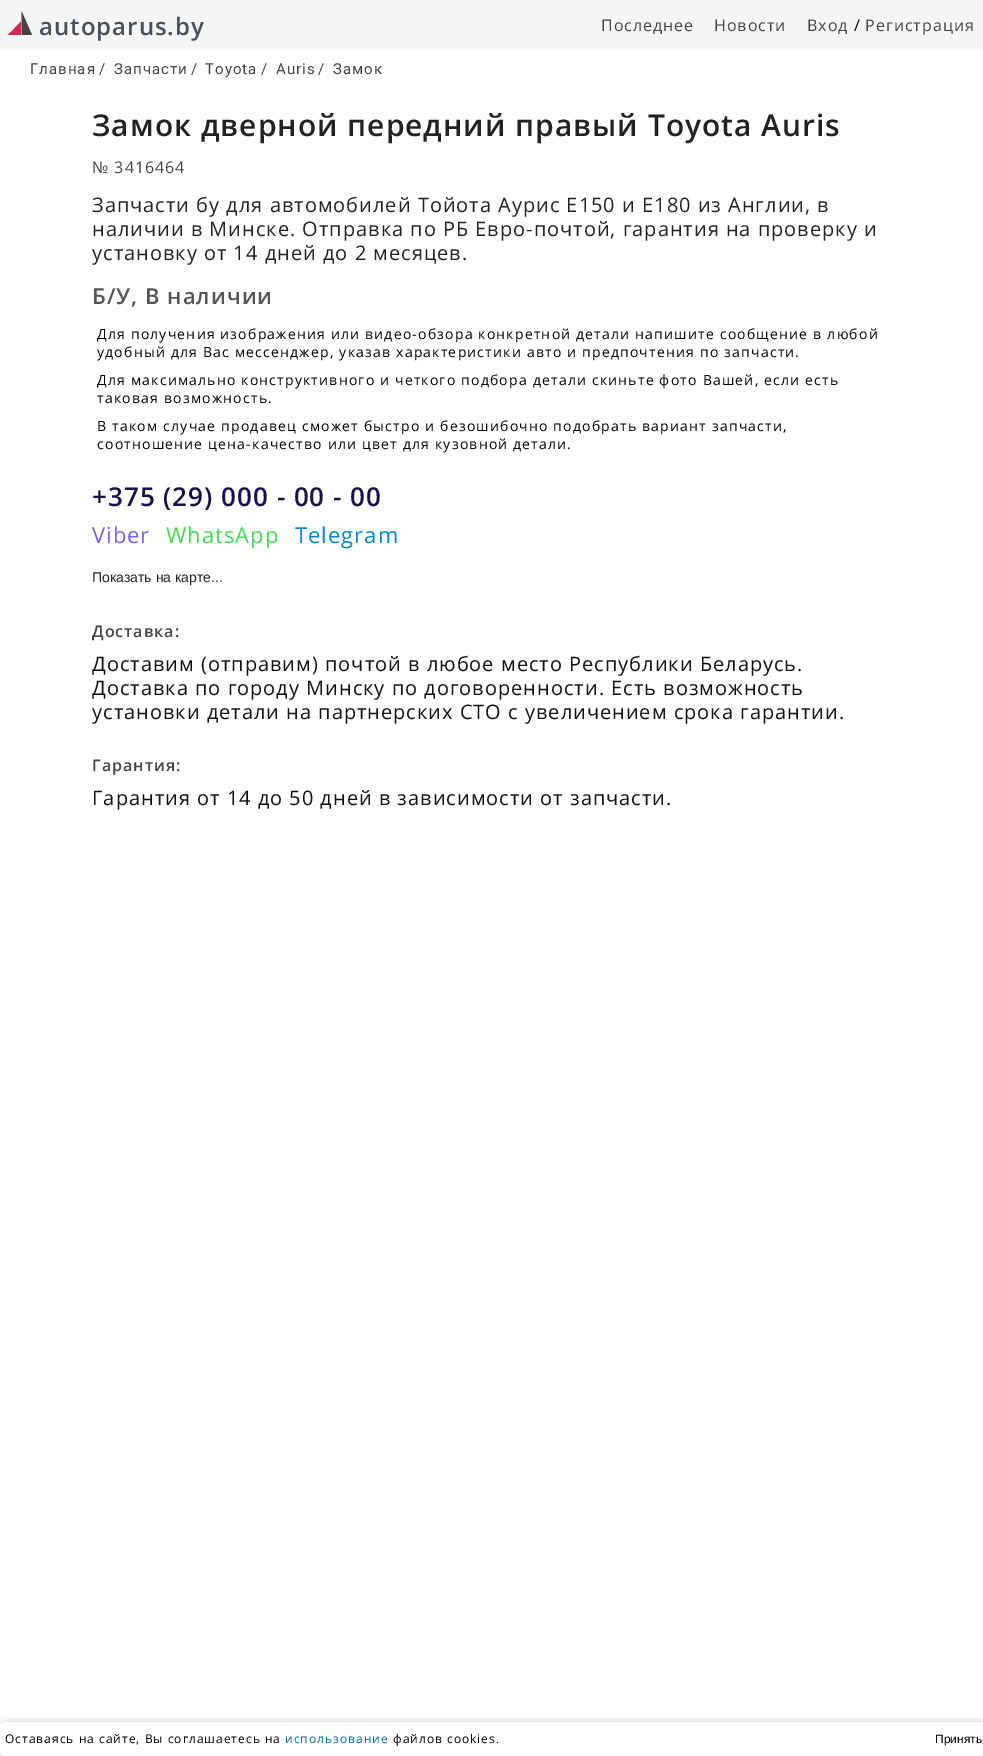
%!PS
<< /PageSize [983 1756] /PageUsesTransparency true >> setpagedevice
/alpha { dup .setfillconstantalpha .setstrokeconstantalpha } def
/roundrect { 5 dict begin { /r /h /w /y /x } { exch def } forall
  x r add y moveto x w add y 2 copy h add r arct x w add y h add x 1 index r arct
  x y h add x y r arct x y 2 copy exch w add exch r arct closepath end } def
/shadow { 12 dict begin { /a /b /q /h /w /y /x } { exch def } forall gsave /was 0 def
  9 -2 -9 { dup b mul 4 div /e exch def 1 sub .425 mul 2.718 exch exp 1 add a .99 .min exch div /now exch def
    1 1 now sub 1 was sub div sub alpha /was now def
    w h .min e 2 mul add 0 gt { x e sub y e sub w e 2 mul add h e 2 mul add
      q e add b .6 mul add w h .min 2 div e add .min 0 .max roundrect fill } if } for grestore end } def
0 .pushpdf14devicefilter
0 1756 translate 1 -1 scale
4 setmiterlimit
1 setgray
0 0 983 1756 rectfill
0.957 0.961 0.969 setrgbcolor
0 0 983 50 rectfill
0.824 0.157 0.337 setrgbcolor
newpath 21 21.5 moveto 21 35 lineto 8 35 lineto closepath fill
0.286 0.259 0.259 setrgbcolor
newpath 21.5 11 moveto 32 35 lineto 21.5 35 lineto closepath fill
/OpenSans-SemiBold [24 0 0 -24 0 0] selectfont
0.298 0.314 0.325 setrgbcolor
39 35 moveto 1 0 (autoparus.by) ashow
/OpenSans-Regular [16 0 0 -16 0 0] selectfont
0.267 setgray
601 31 moveto 1 0 (Последнее) ashow
714 31 moveto 1 0 (Новости) ashow
807 31 moveto 1 0 (Вход) ashow
0 setgray
854 31 moveto 1 0 (/) ashow
0.267 setgray
865 31 moveto 1 0 (Регистрация) ashow
/Roboto-Regular [15 0 0 -15 0 0] selectfont
30 74 moveto 1 0 (Главная) ashow
99 74 moveto 1 0 (/) ashow
114 74 moveto 1 0 (Запчасти) ashow
191 74 moveto 1 0 (/) ashow
205 74 moveto 1 0 (Toyota) ashow
261 74 moveto 1 0 (/) ashow
276 74 moveto 1 0 (Auris) ashow
318 74 moveto 1 0 (/) ashow
333 74 moveto 1 0 (Замок) ashow
/OpenSans-SemiBold [30 0 0 -30 0 0] selectfont
0.133 setgray
92 136 moveto 1 0 (Замок дверной передний правый Toyota Auris) ashow
/OpenSans-Regular [16 0 0 -16 0 0] selectfont
0.267 setgray
92 173 moveto 1 0 (№ 3416464) ashow
/OpenSans-Regular [20 0 0 -20 0 0] selectfont
0.133 setgray
92 212 moveto 1 0 (Запчасти бу для автомобилей Тойота Аурис Е150 и Е180 из Англии, в) ashow
92 236 moveto 1 0 (наличии в Минске. Отправка по РБ Евро-почтой, гарантия на проверку и) ashow
92 260 moveto 1 0 (установку от 14 дней до 2 месяцев.) ashow
/OpenSans-SemiBold [22 0 0 -22 0 0] selectfont
0.333 setgray
92 304 moveto 1 0 (Б/У, В наличии) ashow
/OpenSans-Regular [14 0 0 -14 0 0] selectfont
0 setgray
97 339 moveto 1.2 0 (Для получения изображения или видео-обзора конкретной детали напишите сообщение в любой) ashow
97 357 moveto 1.2 0 (удобный для Вас мессенджер, указав характеристики авто и предпочтения по запчасти.) ashow
97 385 moveto 1.2 0 (Для максимально конструктивного и четкого подбора детали скиньте фото Вашей, если есть) ashow
97 403 moveto 1.2 0 (таковая возможность.) ashow
97 431 moveto 1.2 0 (В таком случае продавец сможет быстро и безошибочно подобрать вариант запчасти,) ashow
97 449 moveto 1.2 0 (соотношение цена-качество или цвет для кузовной детали.) ashow
/OpenSans-SemiBold [26 0 0 -26 0 0] selectfont
0.094 0.063 0.282 setrgbcolor
92 506 moveto 1 0 (+375 \(29\) 000 - 00 - 00) ashow
/OpenSans-Regular [22 0 0 -22 0 0] selectfont
0.451 0.376 0.949 setrgbcolor
92 543 moveto 1 0 (Viber) ashow
0.263 0.847 0.329 setrgbcolor
166 543 moveto 1 0 (WhatsApp) ashow
0 0.533 0.8 setrgbcolor
295 543 moveto 1 0 (Telegram) ashow
/LiberationSans-Regular [14 0 0 -14 0 0] selectfont
0.133 setgray
92 582 moveto (Показать на карте...) show
/OpenSans-SemiBold [16 0 0 -16 0 0] selectfont
0.267 setgray
92 637 moveto 1 0 (Доставка:) ashow
/OpenSans-Regular [20 0 0 -20 0 0] selectfont
0.067 setgray
92 671 moveto 1 0 (Доставим \(отправим\) почтой в любое место Республики Беларусь.) ashow
92 695 moveto 1 0 (Доставка по городу Минску по договоренности. Есть возможность) ashow
92 719 moveto 1 0 (установки детали на партнерских СТО с увеличением срока гарантии.) ashow
/OpenSans-SemiBold [16 0 0 -16 0 0] selectfont
0.267 setgray
92 771 moveto 1 0 (Гарантия:) ashow
/OpenSans-Regular [20 0 0 -20 0 0] selectfont
0.067 setgray
92 805 moveto 1 0 (Гарантия от 14 до 50 дней в зависимости от запчасти.) ashow
0 setgray
2 1725 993 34 4 5 0.4 shadow
1 setgray
0 1722 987 34 4 roundrect fill
/OpenSans-Regular [12 0 0 -12 0 0] selectfont
0 setgray
5 1743 moveto 1 0 (Оставаясь на сайте, Вы соглашаетесь на) ashow
0.012 0.412 0.631 setrgbcolor
285 1743 moveto 1 0 (использование) ashow
0 setgray
393 1743 moveto 1 0 (файлов cookies.) ashow
/LiberationSans-Regular [12 0 0 -12 0 0] selectfont
935 1743 moveto (Принять) show
.poppdf14devicefilter showpage
